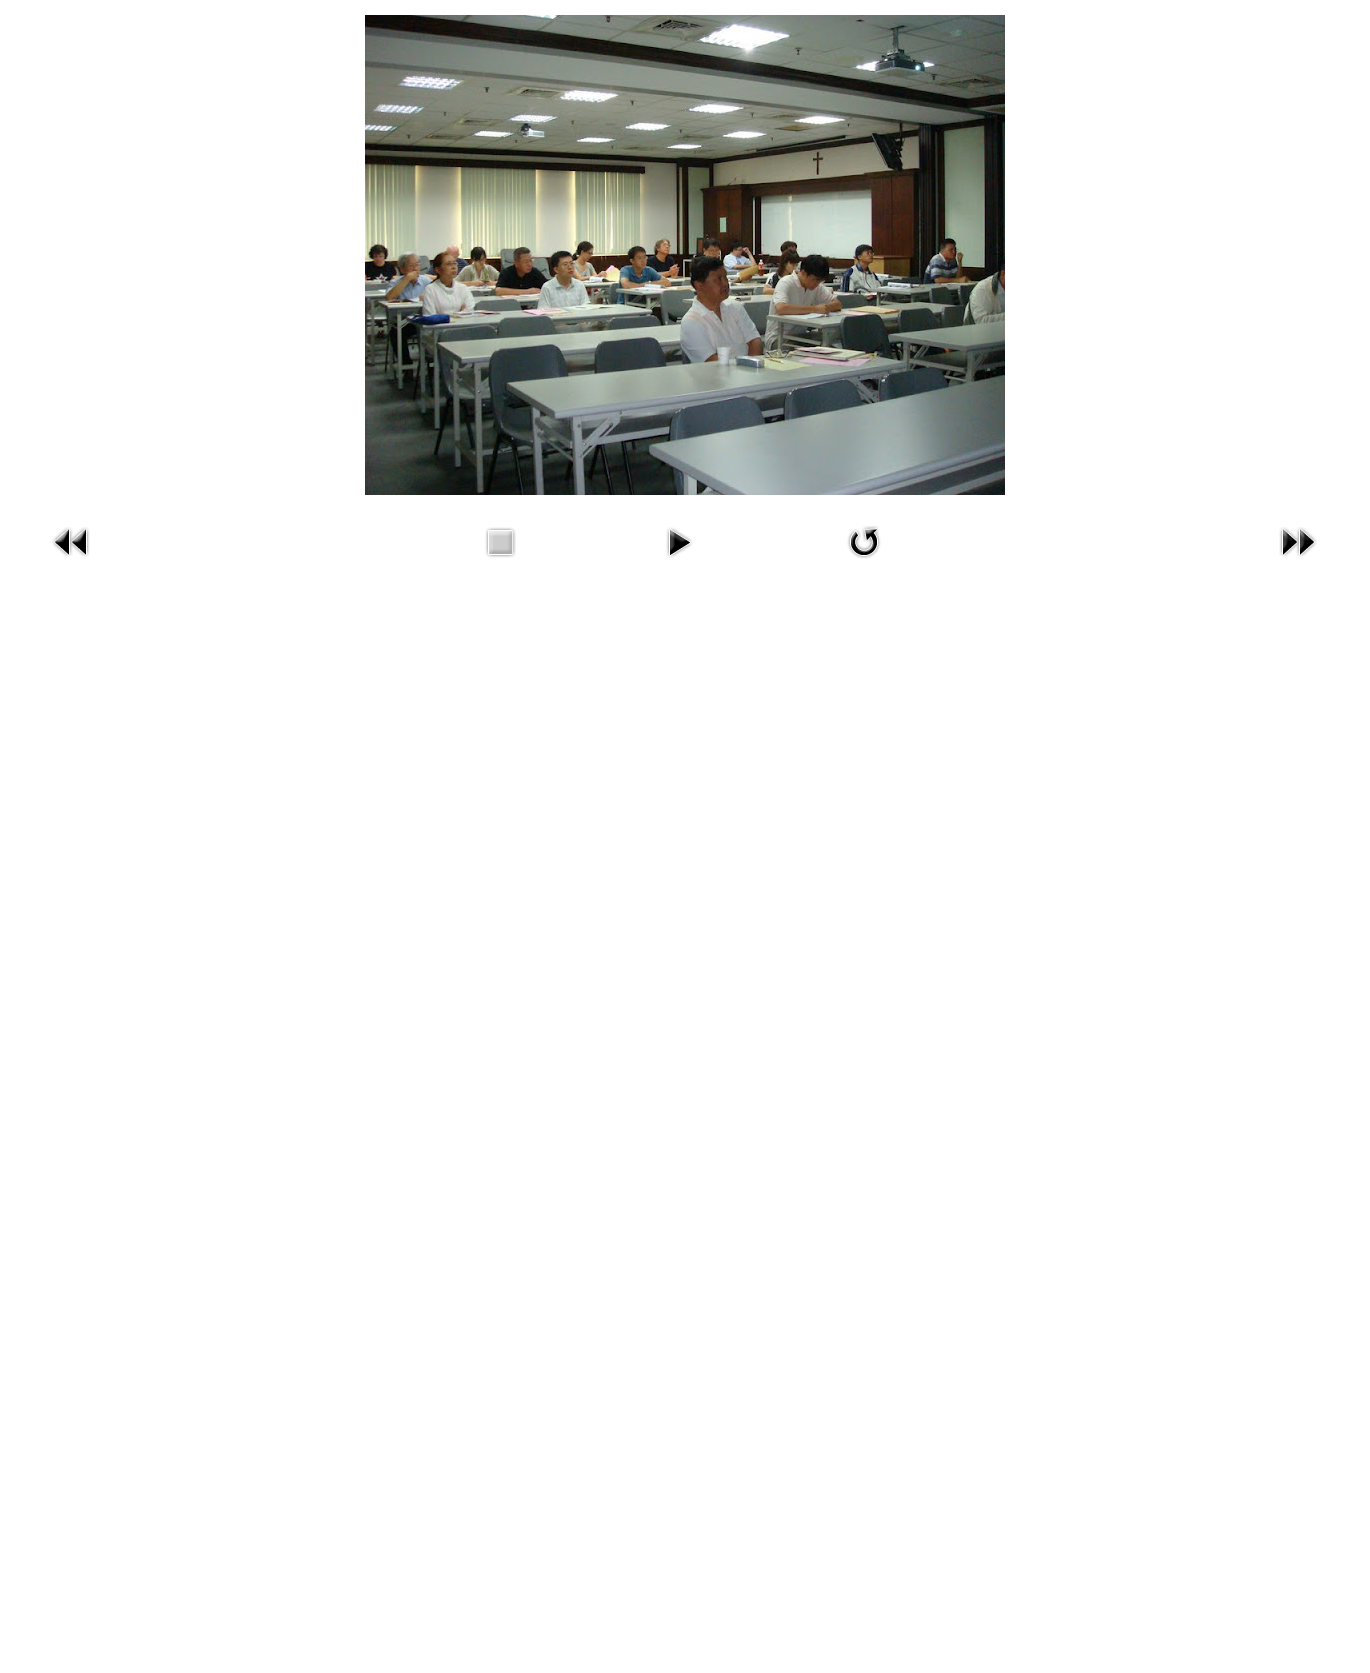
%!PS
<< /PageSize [1370 1673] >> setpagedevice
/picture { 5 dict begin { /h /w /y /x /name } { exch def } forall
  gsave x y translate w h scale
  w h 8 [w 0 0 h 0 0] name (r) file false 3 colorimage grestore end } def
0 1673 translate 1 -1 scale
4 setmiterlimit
1 setgray
0 0 1370 1673 rectfill
(img1.rgb) 365 15 640 480 picture
(img2.rgb) 52 527 38 30 picture
(img3.rgb) 485 527 31 31 picture
(img4.rgb) 666 527 27 31 picture
(img5.rgb) 847 525 34 34 picture
(img6.rgb) 1279 527 38 30 picture
showpage
